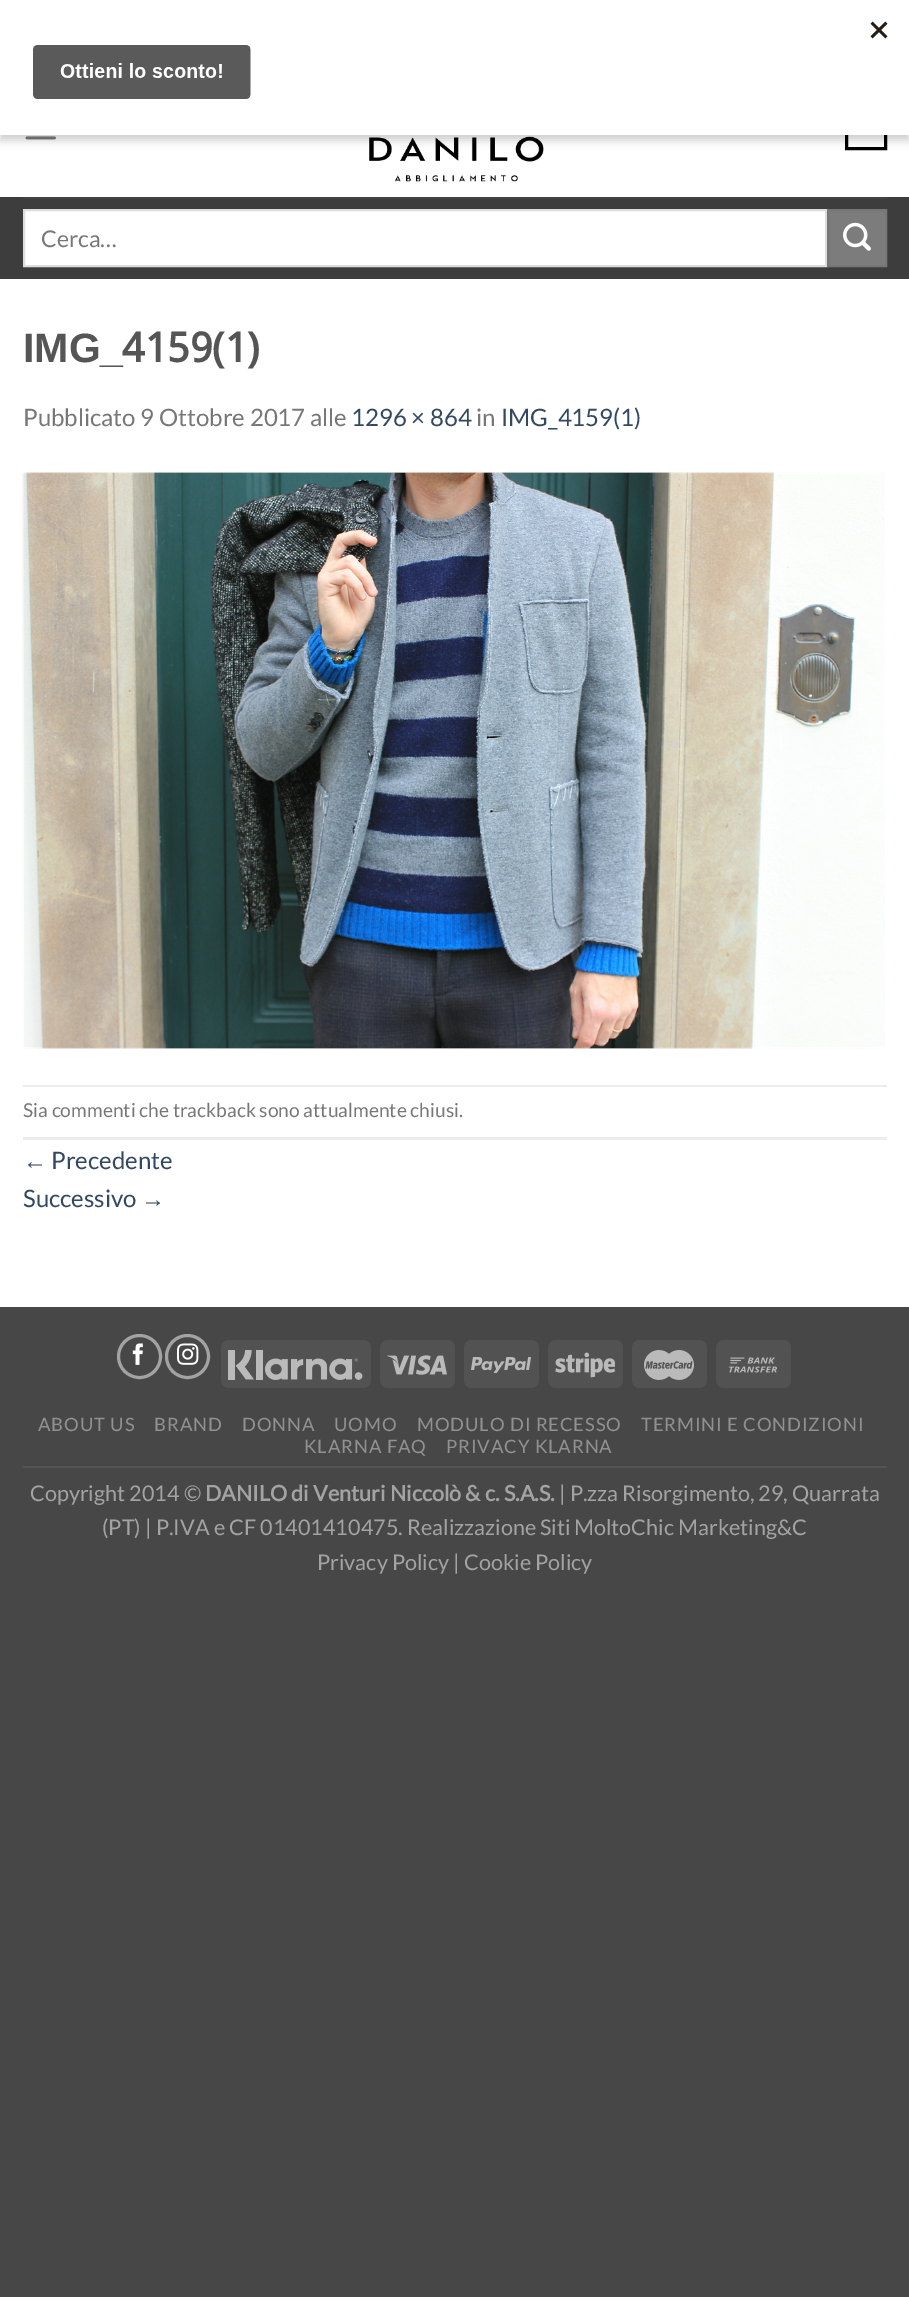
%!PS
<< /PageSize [909 2297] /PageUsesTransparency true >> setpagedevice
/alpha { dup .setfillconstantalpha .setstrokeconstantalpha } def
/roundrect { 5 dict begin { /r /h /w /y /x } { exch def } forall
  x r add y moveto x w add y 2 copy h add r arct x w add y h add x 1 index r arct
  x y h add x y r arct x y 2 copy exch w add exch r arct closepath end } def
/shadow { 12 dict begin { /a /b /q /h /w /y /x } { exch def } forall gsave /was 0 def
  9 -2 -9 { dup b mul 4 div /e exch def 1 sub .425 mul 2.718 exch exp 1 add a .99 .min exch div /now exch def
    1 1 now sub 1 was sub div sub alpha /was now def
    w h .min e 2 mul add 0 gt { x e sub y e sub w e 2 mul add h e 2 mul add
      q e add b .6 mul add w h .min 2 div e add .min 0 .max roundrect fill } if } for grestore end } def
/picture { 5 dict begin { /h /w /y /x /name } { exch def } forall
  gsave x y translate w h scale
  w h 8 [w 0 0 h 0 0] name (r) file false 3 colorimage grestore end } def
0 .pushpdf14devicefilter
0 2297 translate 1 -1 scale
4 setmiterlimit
0.278 setgray
0 0 909 2297 rectfill
1 setgray
0 135 909 1172 rectfill
0 setgray
3 setlinewidth
846.5 108.5 39 40 rectstroke
(img2.rgb) 25 136 31 4 picture
(img3.rgb) 369 135 175 47 picture
0 5 909 135 0 4.5 0.2 shadow
1 setgray
0 0 909 135 rectfill
(img1.rgb) 32 21 856 78 picture
0.239 setgray
0 197 909 82 rectfill
0.263 setgray
23 197 864 2 rectfill
1 setgray
newpath 24 210 moveto 826 210 lineto 826 266 lineto 24 266 lineto closepath gsave fill grestore
0.867 setgray
2 setlinewidth
stroke
/Lato-Regular [23 0 0 -23 0 0] selectfont
0.467 setgray
41 247 moveto (Cerca…) show
0.486 setgray
newpath 828 210 moveto 886 210 lineto 886 266 lineto 828 266 lineto closepath gsave fill grestore
0.463 setgray
stroke
(img4.rgb) 843 222 28 29 picture
/LiberationSans-Bold [41 0 0 -41 0 0] selectfont
0.333 setgray
23 362 moveto (IMG_) show
/Khmer-Bold [41 0 0 -41 0 0] selectfont
122 362 moveto (4159\(1\)) show
/Lato-Regular [24 0 0 -24 0 0] selectfont
0.467 setgray
23 426 moveto (Pubblicato 9 Ottobre 2017 alle) show
0.2 0.282 0.384 setrgbcolor
351 426 moveto (1296 × 864) show
0.467 setgray
476 426 moveto (in) show
0.2 0.282 0.384 setrgbcolor
501 426 moveto (IMG_4159\(1\)) show
(img5.rgb) 22 472 863 577 picture
0.925 setgray
23 1085 864 2 rectfill
23 1137 864 3 rectfill
/Lato-Regular [19.2 0 0 -19.2 0 0] selectfont
0.467 setgray
23 1117 moveto (Sia commenti che trackback sono attualmente chiusi.) show
/LiberationSans-Regular [24 0 0 -24 0 0] selectfont
0.2 0.282 0.384 setrgbcolor
23 1169 moveto (←) show
/Lato-Regular [24 0 0 -24 0 0] selectfont
51 1169 moveto (Precedente) show
23 1207 moveto (Successivo) show
/LiberationSans-Regular [24 0 0 -24 0 0] selectfont
141 1207 moveto (→) show
0.639 setgray
3 setlinewidth
newpath 139.5 1356.5 21 0 360 arc closepath stroke
(img6.rgb) 132 1343 11 22 picture
newpath 187.5 1356.5 21 0 360 arc closepath stroke
(img7.rgb) 177 1343 22 22 picture
0.322 setgray
221 1340 150 48 8 roundrect fill
(img8.rgb) 228 1350 135 30 picture
380 1340 75 48 8 roundrect fill
(img9.rgb) 387 1355 60 20 picture
464 1340 75 48 8 roundrect fill
(img10.rgb) 471 1357 60 16 picture
548 1340 75 48 8 roundrect fill
(img11.rgb) 555 1352 60 26 picture
632 1340 75 48 8 roundrect fill
(img12.rgb) 644 1350 50 30 picture
716 1340 75 48 8 roundrect fill
(img13.rgb) 729 1357 48 16 picture
0.325 setgray
23 1466 864 2 rectfill
/Lato-Regular [18.4 0 0 -18.4 0 0] selectfont
0.569 setgray
38 1431 moveto 0.9 0 (ABOUT US) ashow
154 1431 moveto 0.9 0 (BRAND) ashow
242 1431 moveto 0.9 0 (DONNA) ashow
334 1431 moveto 0.9 0 (UOMO) ashow
417 1431 moveto 0.9 0 (MODULO DI RECESSO) ashow
641 1431 moveto 0.9 0 (TERMINI E CONDIZIONI) ashow
304 1453 moveto 0.9 0 (KLARNA FAQ) ashow
446 1453 moveto 0.9 0 (PRIVACY KLARNA) ashow
/Lato-Regular [21.6 0 0 -21.6 0 0] selectfont
0.639 setgray
30 1501 moveto (Copyright 2014 ©) show
/Lato-Bold [21.6 0 0 -21.6 0 0] selectfont
205 1501 moveto (DANILO di Venturi Niccolò & c. S.A.S.) show
/Lato-Regular [21.6 0 0 -21.6 0 0] selectfont
559 1501 moveto (| P.zza Risorgimento, 29, Quarrata) show
102 1535 moveto (\(PT\) | P.IVA e CF 01401410475. Realizzazione Siti) show
574 1535 moveto (MoltoChic Marketing&C) show
317 1570 moveto (Privacy Policy | Cookie Policy) show
.poppdf14devicefilter showpage
